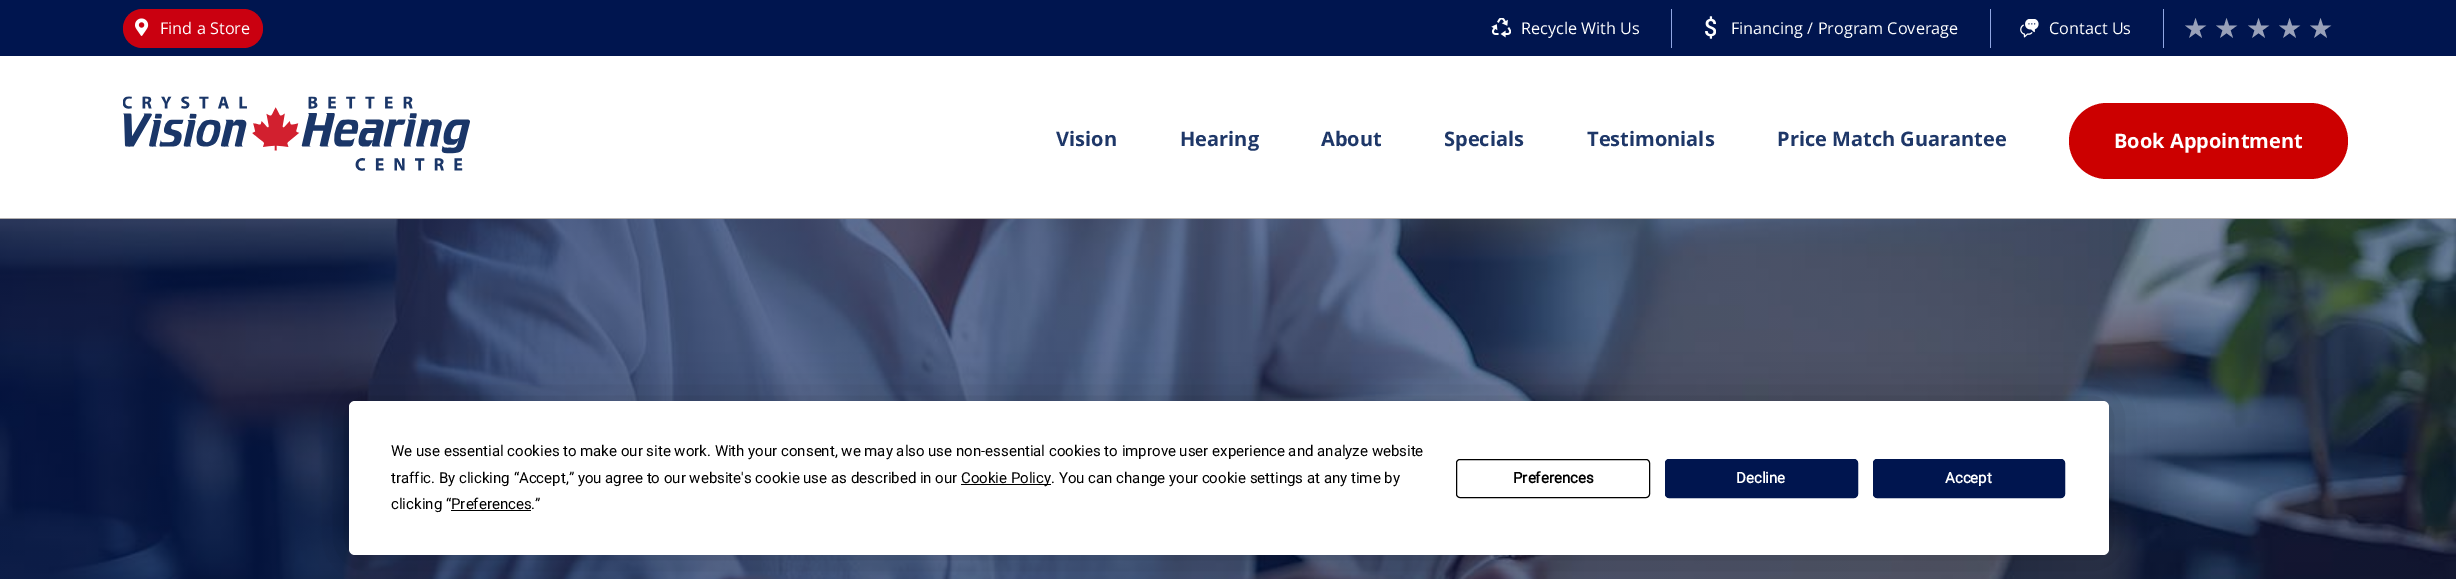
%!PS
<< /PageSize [2456 579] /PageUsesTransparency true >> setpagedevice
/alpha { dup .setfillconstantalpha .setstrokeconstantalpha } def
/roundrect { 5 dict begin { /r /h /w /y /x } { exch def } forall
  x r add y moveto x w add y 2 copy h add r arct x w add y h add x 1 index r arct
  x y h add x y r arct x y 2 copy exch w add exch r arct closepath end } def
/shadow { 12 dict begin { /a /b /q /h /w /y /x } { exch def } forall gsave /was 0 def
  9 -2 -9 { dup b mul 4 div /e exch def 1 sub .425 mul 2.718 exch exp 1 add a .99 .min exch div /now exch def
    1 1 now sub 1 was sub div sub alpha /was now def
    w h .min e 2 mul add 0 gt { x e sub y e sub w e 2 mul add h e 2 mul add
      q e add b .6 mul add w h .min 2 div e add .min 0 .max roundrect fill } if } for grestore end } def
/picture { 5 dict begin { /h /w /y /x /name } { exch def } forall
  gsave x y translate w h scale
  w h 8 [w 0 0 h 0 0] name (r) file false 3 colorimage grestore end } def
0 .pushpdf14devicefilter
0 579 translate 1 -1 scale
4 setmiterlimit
1 setgray
0 0 2456 579 rectfill
0 0.082 0.31 setrgbcolor
0 0 2456 56 rectfill
0.792 0 0.063 setrgbcolor
123 9 140 39 19.5 roundrect fill
(img1.rgb) 135 18 14 18 picture
/OpenSans-Regular [16.25 0 0 -16.25 0 0] selectfont
1 setgray
160 34 moveto (Find a Store) show
0.565 0.651 0.89 setrgbcolor
1671 9 1 39 rectfill
(img2.rgb) 1491 18 20 20 picture
1 setgray
1521 34 moveto (Recycle With Us) show
0.565 0.651 0.89 setrgbcolor
1990 9 1 39 rectfill
(img3.rgb) 1705 16 11 23 picture
1 setgray
1731 34 moveto (Financing / Program Coverage) show
0.565 0.651 0.89 setrgbcolor
2163 9 1 39 rectfill
(img4.rgb) 2020 19 19 19 picture
1 setgray
2049 34 moveto (Contact Us) show
/DejaVuSans-Regular [28 0 0 -28 0 0] selectfont
0.6 0.631 0.725 setrgbcolor
2183 38 moveto (★) show
2214 38 moveto (★) show
2246 38 moveto (★) show
2277 38 moveto (★) show
2308 38 moveto (★) show
0.694 0.686 0.686 setrgbcolor
0 218 2456 1 rectfill
(img5.rgb) 123 96 347 75 picture
/OpenSans-Bold [20 0 0 -20 0 0] selectfont
0.118 0.216 0.408 setrgbcolor
1056 146 moveto (Vision) show
1180 146 moveto (Hearing) show
1321 146 moveto (About) show
1444 146 moveto (Specials) show
1587 146 moveto (Testimonials) show
1777 146 moveto (Price Match Guarantee) show
0.8 0 0 setrgbcolor
2069 103 279 76 38 roundrect fill
1 setgray
2114 148 moveto (Book Appointment) show
(img6.rgb) 0 219 2456 360 picture
0 setgray
349 401 1760 154 6 22 0.25 shadow
1 setgray
349 401 1760 154 6 roundrect fill
/Roboto-Regular [15 0 0 -15 0 0] selectfont
0 setgray
391 456 moveto (We use essential cookies to make our site work. With your consent, we may also use non-essential cookies to improve user experience and analyze website) show
391 483 moveto (traffic. By clicking “Accept,” you agree to our website's cookie use as described in our) show
961 484 90 1 rectfill
961 483 moveto (Cookie Policy. You can change your cookie settings at any time by) show
391 509 moveto (clicking “Preferences.”) show
451 510 80 1 rectfill
1456.5 459.5 193 38 3.5 roundrect stroke
/Roboto-Bold [15 0 0 -15 0 0] selectfont
1513 483 moveto (Preferences) show
0 0.082 0.31 setrgbcolor
1665.5 459.5 192 38 3.5 roundrect gsave fill grestore
stroke
1 setgray
1736 483 moveto (Decline) show
0 0.082 0.31 setrgbcolor
1873.5 459.5 191 38 3.5 roundrect gsave fill grestore
stroke
1 setgray
1945 483 moveto (Accept) show
.poppdf14devicefilter showpage
